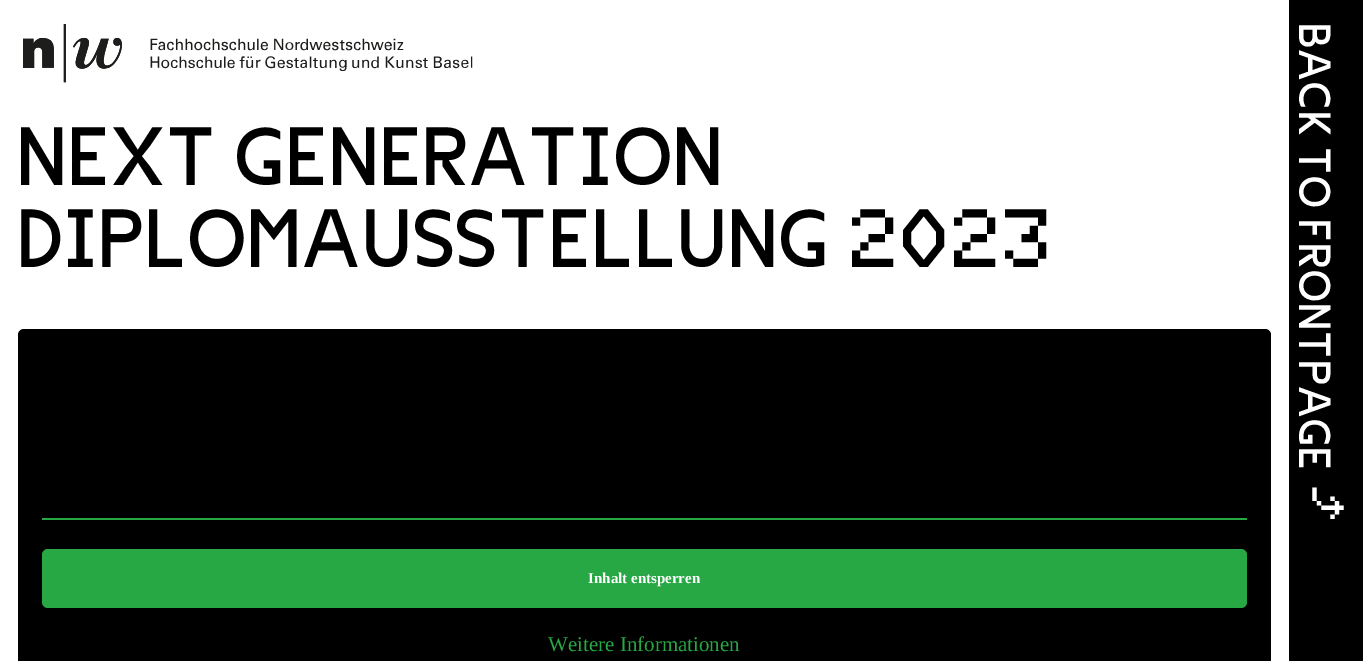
%!PS
<< /PageSize [1363 661] >> setpagedevice
/roundrect { 5 dict begin { /r /h /w /y /x } { exch def } forall
  x r add y moveto x w add y 2 copy h add r arct x w add y h add x 1 index r arct
  x y h add x y r arct x y 2 copy exch w add exch r arct closepath end } def
/picture { 5 dict begin { /h /w /y /x /name } { exch def } forall
  gsave x y translate w h scale
  w h 8 [w 0 0 h 0 0] name (r) file false 3 colorimage grestore end } def
0 661 translate 1 -1 scale
4 setmiterlimit
1 setgray
0 0 1363 661 rectfill
/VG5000-Regular [82.5 0 0 -82.5 0 0] selectfont
0 setgray
17 185 moveto 1.5 0 (NEXT GENERATION) ashow
17 267 moveto 1.5 0 (DIPLOMAUSSTELLUNG 2023) ashow
18 329 1253 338 6 roundrect fill
0.157 0.655 0.271 setrgbcolor
42 518 1205 2 rectfill
42 549 1205 59 6 roundrect fill
/LiberationSerif-Bold [15 0 0 -15 0 0] selectfont
1 setgray
588 583 moveto (Inhalt entsperren) show
/LiberationSerif-Regular [21 0 0 -21 0 0] selectfont
0.157 0.655 0.271 setrgbcolor
548 651 moveto (Weitere Informationen) show
(img1.rgb) 23 24 450 59 picture
0 setgray
1289 0 74 661 rectfill
/VG5000-Regular [45 0 0 -45 0 0] selectfont
1 setgray
gsave 1299 23 translate 90 rotate 0 0 moveto 1.5 0 (BACK TO FRONTPAGE) ashow grestore
1310 519 moveto 1.5 0 (⤷) ashow
showpage
